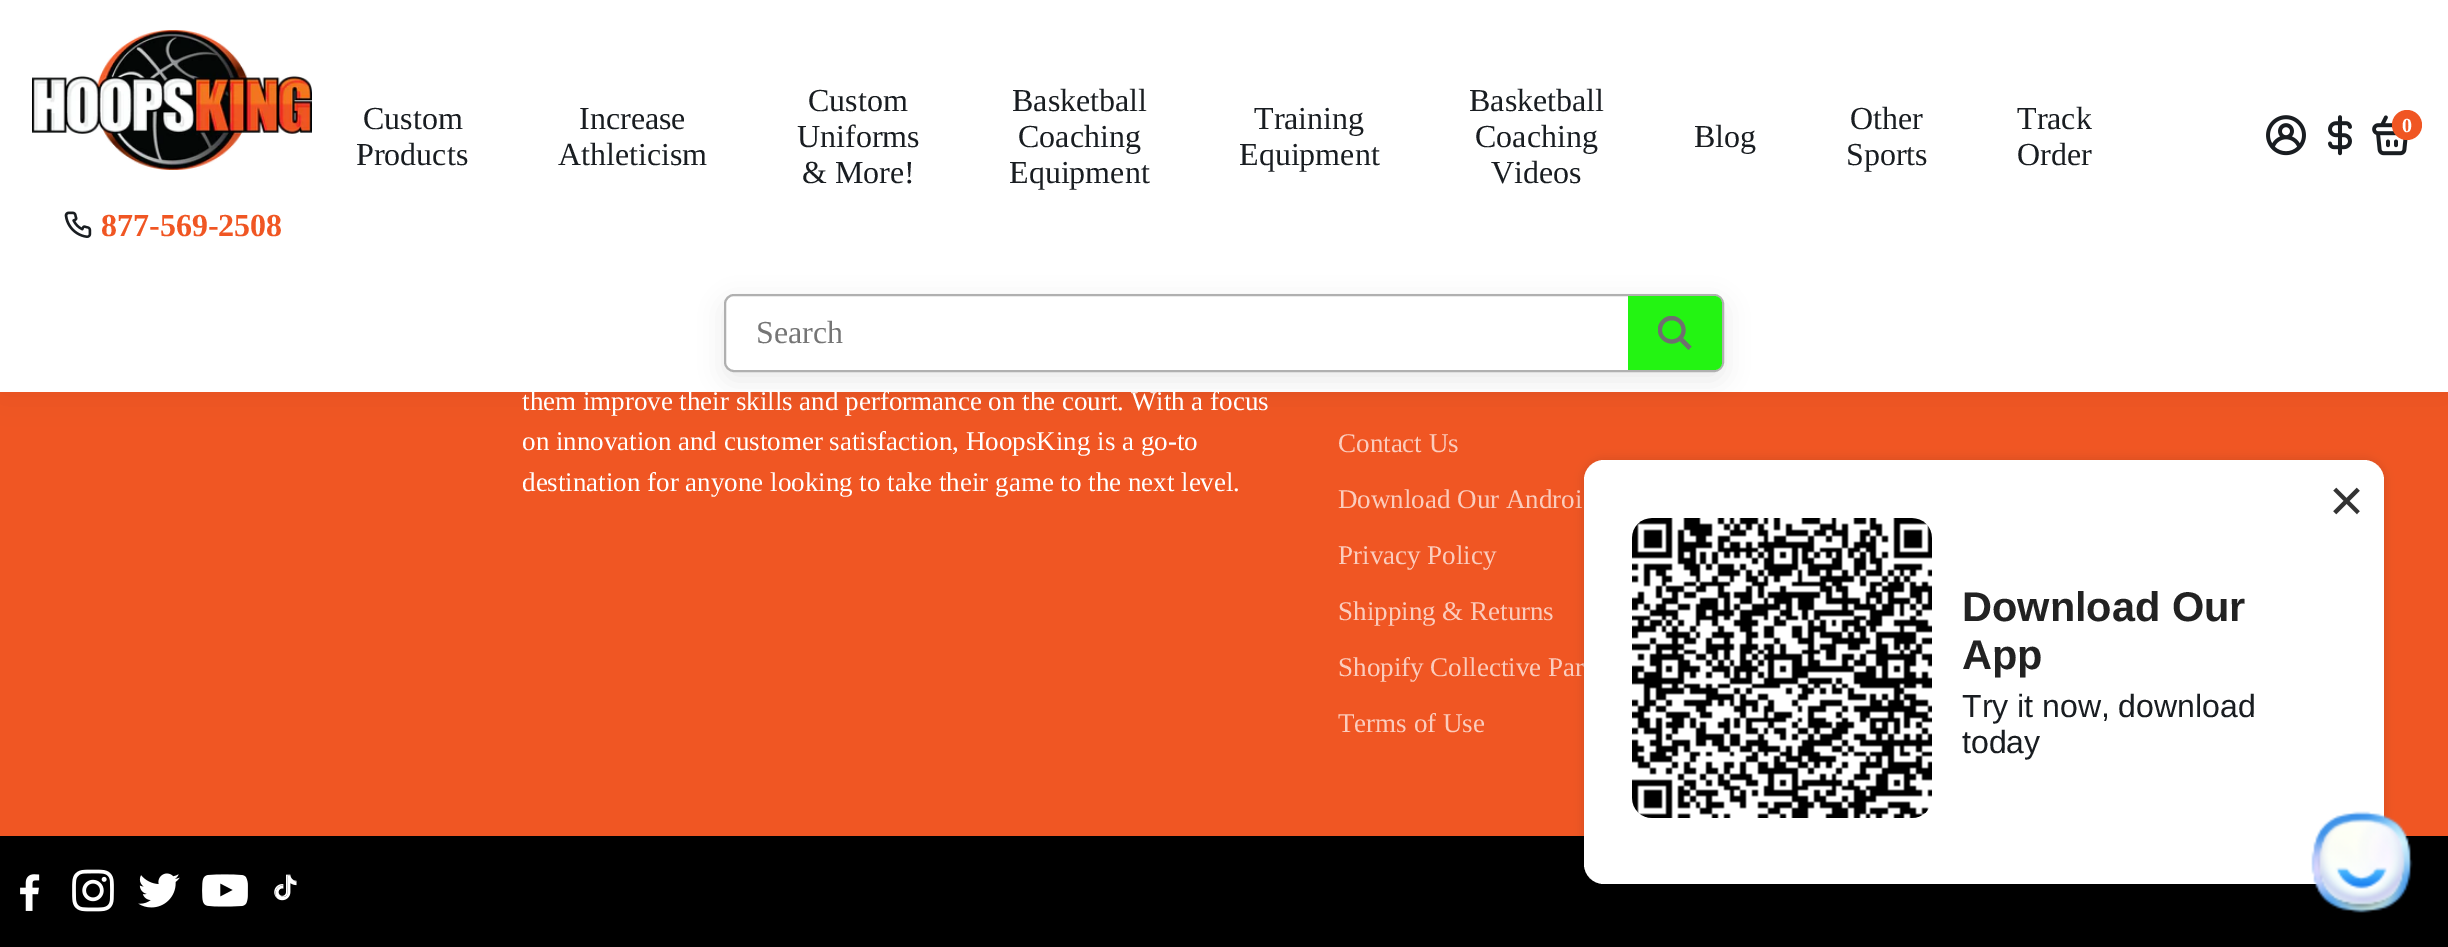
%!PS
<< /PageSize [2448 947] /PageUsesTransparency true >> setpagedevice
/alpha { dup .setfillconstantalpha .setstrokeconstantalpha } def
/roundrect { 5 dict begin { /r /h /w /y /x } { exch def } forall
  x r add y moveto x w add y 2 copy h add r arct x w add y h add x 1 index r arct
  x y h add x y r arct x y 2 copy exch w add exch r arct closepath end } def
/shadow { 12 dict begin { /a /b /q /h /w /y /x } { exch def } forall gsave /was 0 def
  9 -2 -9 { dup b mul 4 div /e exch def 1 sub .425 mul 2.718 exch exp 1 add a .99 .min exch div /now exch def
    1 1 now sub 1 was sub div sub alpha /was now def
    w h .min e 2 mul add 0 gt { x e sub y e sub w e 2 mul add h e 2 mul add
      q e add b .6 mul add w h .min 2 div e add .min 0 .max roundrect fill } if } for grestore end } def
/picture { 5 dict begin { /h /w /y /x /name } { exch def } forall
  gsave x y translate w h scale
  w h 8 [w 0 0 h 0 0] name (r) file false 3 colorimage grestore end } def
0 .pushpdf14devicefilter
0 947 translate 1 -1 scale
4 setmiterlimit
0.941 0.337 0.137 setrgbcolor
0 0 2448 947 rectfill
0 setgray
0 0 2448 392 0 20 0.06 shadow
1 setgray
0 0 2448 392 rectfill
/LiberationSerif-Regular [32 0 0 -32 0 0] selectfont
0.098 0.114 0.129 setrgbcolor
363 129 moveto (Custom) show
356 165 moveto (Products) show
579 129 moveto (Increase) show
558 165 moveto (Athleticism) show
808 111 moveto (Custom) show
797 147 moveto (Uniforms) show
802 183 moveto (& More!) show
1012 111 moveto (Basketball) show
1018 147 moveto (Coaching) show
1009 183 moveto (Equipment) show
1254 129 moveto (Training) show
1239 165 moveto (Equipment) show
1469 111 moveto (Basketball) show
1475 147 moveto (Coaching) show
1491 183 moveto (Videos) show
1694 147 moveto (Blog) show
1850 129 moveto (Other) show
1846 165 moveto (Sports) show
2017 129 moveto (Track) show
2017 165 moveto (Order) show
(img1.rgb) 2266 115 40 41 picture
(img2.rgb) 2328 115 24 41 picture
(img3.rgb) 2372 115 36 41 picture
0.941 0.337 0.137 setrgbcolor
newpath 2407 125 15 0 360 arc closepath fill
/LiberationSerif-Bold [20 0 0 -20 0 0] selectfont
1 setgray
2402 132 moveto (0) show
(img4.rgb) 32 30 280 140 picture
(img5.rgb) 64 211 28 27 picture
/LiberationSerif-Bold [32 0 0 -32 0 0] selectfont
0.941 0.337 0.137 setrgbcolor
101 236 moveto (877-569-2508) show
0 setgray
724 302 1000 78 10 12 0.08 shadow
1 setgray
725 295 998 76 9 roundrect gsave fill grestore
0.69 setgray
2 setlinewidth
stroke
/LiberationSerif-Regular [32 0 0 -32 0 0] selectfont
0.459 setgray
756 343 moveto (Search) show
0.137 0.957 0.071 setrgbcolor
newpath 1628 296 moveto 1714 296 lineto 1718.5 296 1722 299.5 1722 304 curveto 1722 362 lineto 1722 366.5 1718.5 370 1714 370 curveto 1628 370 lineto closepath fill
gsave
1658 316 34 34 rectclip
0.435 setgray
newpath 1691.5 346.5 moveto 1683 338 lineto 1692.5 324.5 1674 308 1662 320 curveto 1650 332 1666 350.5 1679.5 341 curveto 1688.5 350 lineto closepath 1662 330 moveto 1662 317 1681.5 317 1681.5 330 curveto 1681.5 342.5 1662 342.5 1662 330 curveto closepath fill
grestore
/LiberationSerif-Regular [27 0 0 -27 0 0] selectfont
1 setgray
522 410 moveto (them improve their skills and performance on the court. With a focus) show
522 450 moveto (on innovation and customer satisfaction, HoopsKing is a go-to) show
522 491 moveto (destination for anyone looking to take their game to the next level.) show
0.984 0.8 0.741 setrgbcolor
1338 452 moveto (Contact Us) show
1338 508 moveto (Download Our Androi) show
1338 564 moveto (Privacy Policy) show
1338 620 moveto (Shipping & Returns) show
1338 676 moveto (Shopify Collective Par) show
1338 732 moveto (Terms of Use) show
0 setgray
0 836 2448 111 rectfill
(img6.rgb) 20 874 20 37 picture
(img7.rgb) 72 869 42 43 picture
(img8.rgb) 138 873 42 35 picture
(img9.rgb) 202 874 46 33 picture
(img10.rgb) 274 874 23 27 picture
1582 458 804 428 22 4 0.08 shadow
1 setgray
1584 460 800 424 20 roundrect fill
/LiberationSans-Regular [60 0 0 -60 0 0] selectfont
0.2 setgray
2329 521 moveto (×) show
(img11.rgb) 1632 518 300 300 picture
/LiberationSans-Bold [41.5 0 0 -41.5 0 0] selectfont
0.133 setgray
1962 621 moveto (Download Our) show
1962 669 moveto (App) show
/LiberationSans-Regular [32 0 0 -32 0 0] selectfont
0.098 0.114 0.129 setrgbcolor
1962 717 moveto (Try it now, download) show
1962 753 moveto (today) show
(img12.rgb) 2311 811 102 102 picture
.poppdf14devicefilter showpage
